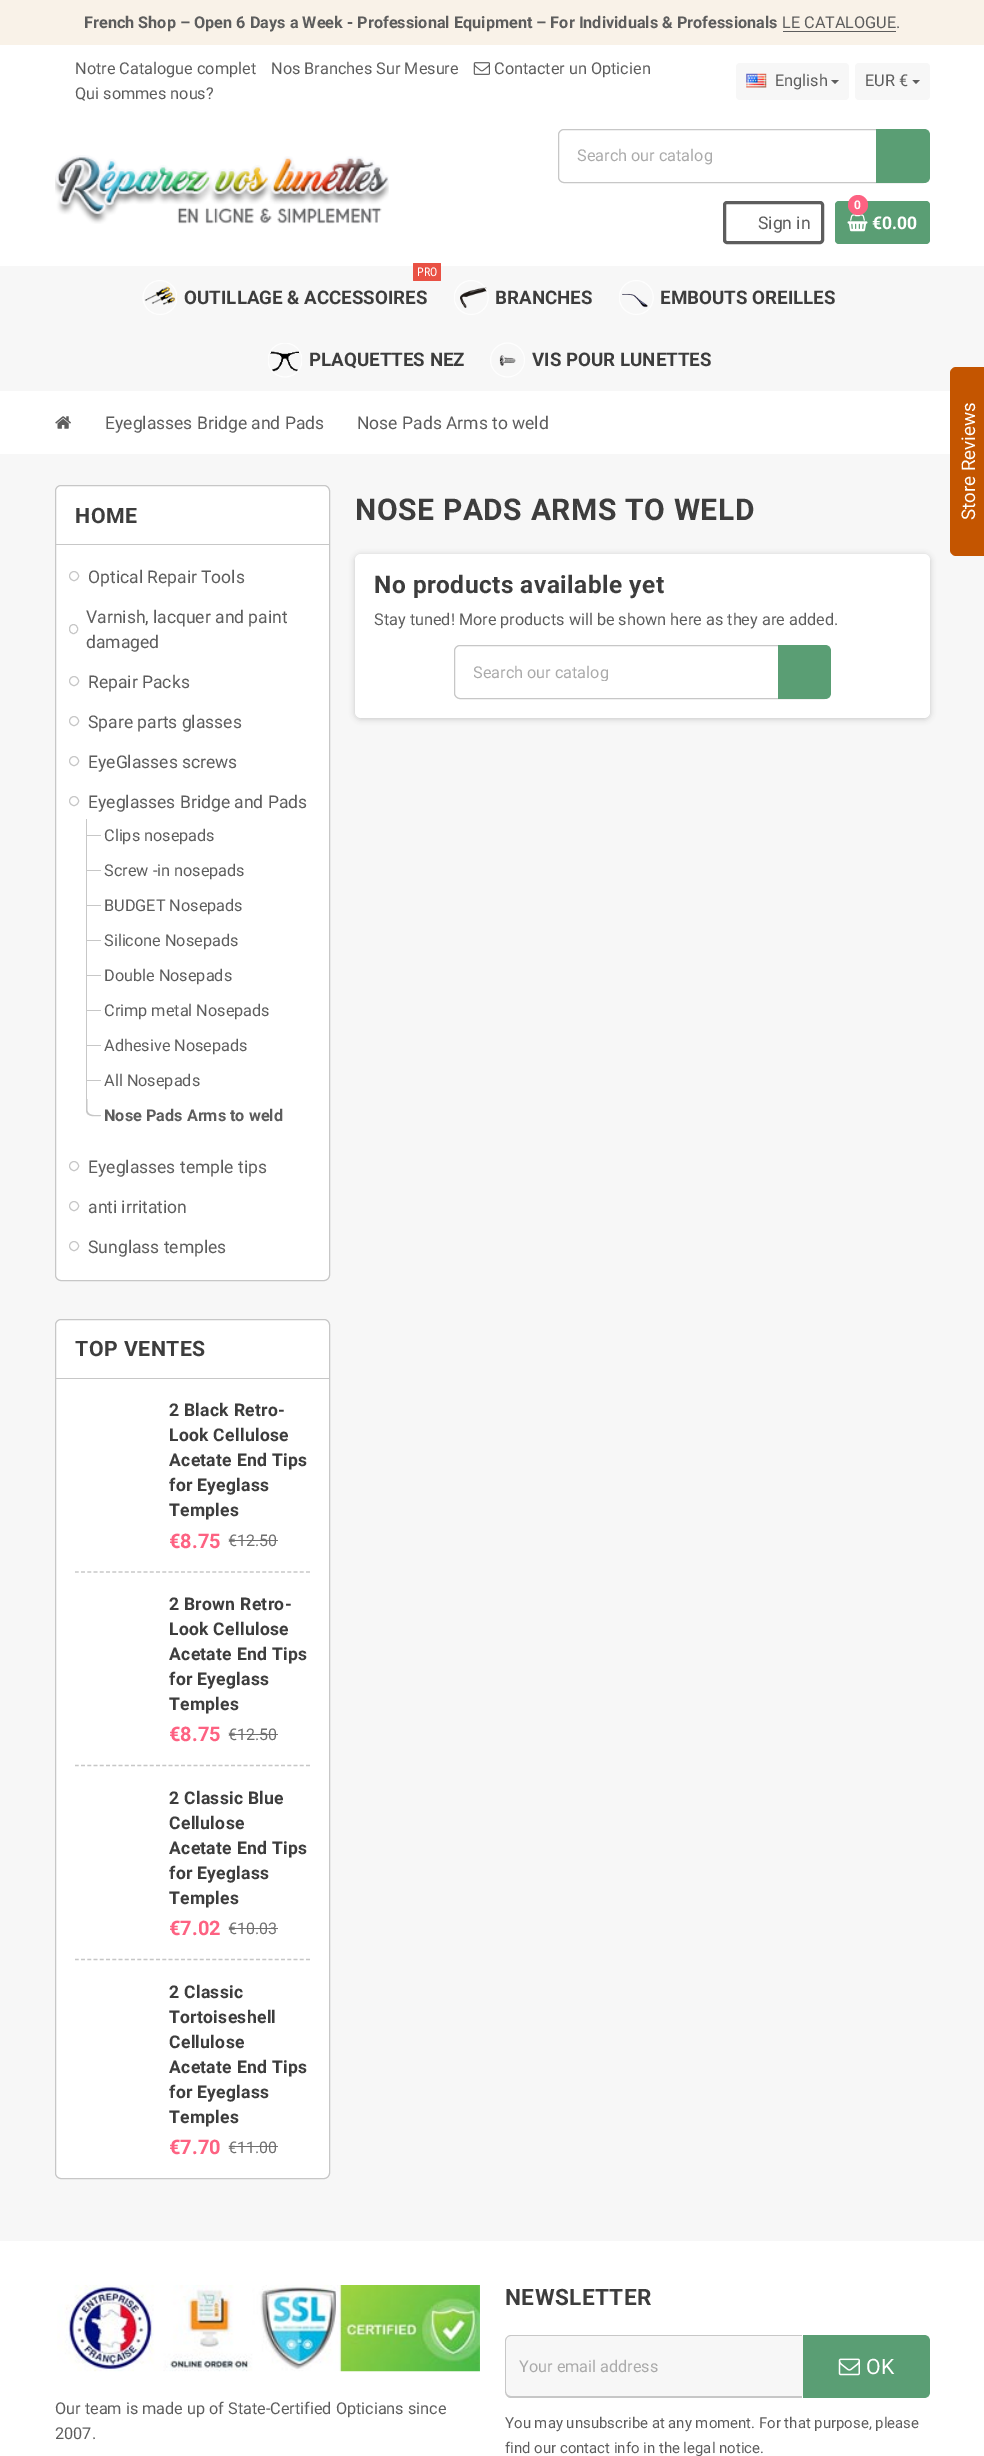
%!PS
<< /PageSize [984 2456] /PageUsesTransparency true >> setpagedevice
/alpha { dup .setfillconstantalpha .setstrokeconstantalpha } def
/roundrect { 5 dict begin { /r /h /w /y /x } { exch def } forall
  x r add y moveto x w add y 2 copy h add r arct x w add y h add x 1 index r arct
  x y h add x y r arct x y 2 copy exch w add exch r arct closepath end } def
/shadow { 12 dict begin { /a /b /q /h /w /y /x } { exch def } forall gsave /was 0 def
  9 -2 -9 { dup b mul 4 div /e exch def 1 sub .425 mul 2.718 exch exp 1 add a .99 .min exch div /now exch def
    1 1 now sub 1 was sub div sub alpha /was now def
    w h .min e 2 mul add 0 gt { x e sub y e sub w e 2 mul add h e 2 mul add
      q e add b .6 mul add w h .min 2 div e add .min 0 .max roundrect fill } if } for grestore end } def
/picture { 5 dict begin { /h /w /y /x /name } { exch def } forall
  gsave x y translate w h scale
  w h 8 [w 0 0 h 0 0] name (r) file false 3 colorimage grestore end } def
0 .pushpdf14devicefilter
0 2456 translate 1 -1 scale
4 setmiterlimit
1 setgray
0 0 984 2456 rectfill
0.976 0.949 0.91 setrgbcolor
0 0 984 45 rectfill
/Roboto-Bold [16.25 0 0 -16.25 0 0] selectfont
0.365 setgray
84 28 moveto (French Shop – Open 6 Days a Week - Professional Equipment – For Individuals & Professionals) show
/Roboto-Regular [16.25 0 0 -16.25 0 0] selectfont
782 28 moveto (LE CATALOGUE.) show
783 31 113 1 rectfill
75 74 moveto (Notre Catalogue complet) show
271 74 moveto (Nos Branches Sur Mesure) show
(img1.rgb) 473 62 17 13 picture
494 74 moveto (Contacter un Opticien) show
75 99 moveto (Qui sommes nous?) show
0.969 setgray
736 63 113 37 4 roundrect fill
(img2.rgb) 746 73 21 15 picture
0.365 setgray
775 86 moveto (English) show
newpath 831 80 moveto 839 80 lineto 835 84 lineto closepath fill
0.969 setgray
855 63 75 37 4 roundrect fill
0.365 setgray
865 86 moveto (EUR €) show
newpath 912.5 80 moveto 920 80 lineto 916 84 lineto closepath fill
(img3.rgb) 55 155 334 69 picture
0.78 setgray
558.5 129.5 370 53 5.5 roundrect stroke
0.667 setgray
577 161 moveto (Search our catalog) show
0.353 0.62 0.455 setrgbcolor
newpath 876 129 moveto 924 129 lineto 927.5 129 930 131.5 930 135 curveto 930 177 lineto 930 180.5 927.5 183 924 183 curveto 876 183 lineto closepath fill
0.365 setgray
3 setlinewidth
724.5 202.5 98 40 2.5 roundrect stroke
/Roboto-Regular [17.5 0 0 -17.5 0 0] selectfont
758 229 moveto (Sign in) show
0.353 0.62 0.455 setrgbcolor
835 201 95 43 4 roundrect fill
(img4.rgb) 847 214 21 18 picture
0.992 0.384 0.51 setrgbcolor
newpath 858 205 10 0 360 arc closepath fill
/Roboto-Bold [12 0 0 -12 0 0] selectfont
1 setgray
854 209 moveto (0) show
/Roboto-Bold [17.5 0 0 -17.5 0 0] selectfont
872 229 moveto (€0.00) show
0.969 setgray
0 266 984 125 rectfill
0.914 0.318 0.267 setrgbcolor
413 263 28 18 1 roundrect fill
/RobotoCondensed-Regular [12 0 0 -12 0 0] selectfont
1 setgray
417 276 moveto (PRO) show
(img5.rgb) 142 280 35 35 picture
/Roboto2-Bold [18.75 0 0 -18.75 0 0] selectfont
0.239 setgray
184 304 moveto (OUTILLAGE & ACCESSOIRES) show
(img6.rgb) 454 280 35 35 picture
495 304 moveto (BRANCHES) show
(img7.rgb) 619 280 35 35 picture
660 304 moveto (EMBOUTS OREILLES) show
(img8.rgb) 268 343 34 35 picture
309 366 moveto (PLAQUETTES NEZ) show
(img9.rgb) 490 342 35 36 picture
532 366 moveto (VIS POUR LUNETTES) show
0.969 setgray
0 454 984 1787 rectfill
0.769 0.333 0 setrgbcolor
newpath 950 550 moveto 950 373 lineto 950 370 953 367 956 367 curveto 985 367 lineto 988 367 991 370 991 373 curveto 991 550 lineto 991 553 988 556 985 556 curveto 956 556 lineto 953 556 950 553 950 550 curveto closepath fill
/Roboto-Regular [18.75 0 0 -18.75 0 0] selectfont
1 setgray
gsave 975 520 translate -90 rotate 0 0 moveto (Store Reviews) show grestore
(img10.rgb) 57 2285 423 87 picture
/Roboto-Regular [16.25 0 0 -16.25 0 0] selectfont
0.365 setgray
55 2414 moveto (Our team is made up of State-Certified Opticians since) show
55 2439 moveto (2007.) show
/Roboto2-Bold [22.5 0 0 -22.5 0 0] selectfont
0.239 setgray
505 2305 moveto 0.5 0 (NEWSLETTER) ashow
0.969 setgray
newpath 511 2336 moveto 803 2336 lineto 803 2396 lineto 511 2396 lineto 508 2396 506 2394 506 2391 curveto 506 2341 lineto 506 2338 508 2336 511 2336 curveto closepath fill
0.78 setgray
newpath 511 2335 moveto 802 2335 lineto 802 2398 lineto 511 2398 lineto 508 2398 505 2395 505 2391 curveto 505 2341 lineto 505 2338 508 2335 511 2335 curveto closepath 511 2336 moveto 802 2336 lineto 802 2396 lineto 511 2396 lineto 508 2396 506 2394 506 2391 curveto 506 2341 lineto 506 2338 508 2336 511 2336 curveto closepath eofill
/Roboto-Regular [16.25 0 0 -16.25 0 0] selectfont
0.667 setgray
519 2372 moveto (Your email address) show
0.353 0.62 0.455 setrgbcolor
newpath 803 2335 moveto 924 2335 lineto 927.5 2335 930 2337.5 930 2341 curveto 930 2392 lineto 930 2395.5 927.5 2398 924 2398 curveto 803 2398 lineto closepath fill
(img11.rgb) 838 2358 22 18 picture
/Roboto-Regular [21.25 0 0 -21.25 0 0] selectfont
1 setgray
866 2374 moveto (OK) show
/Roboto-Regular [14.95 0 0 -14.95 0 0] selectfont
0.365 setgray
505 2428 moveto (You may unsubscribe at any moment. For that purpose, please) show
505 2453 moveto (find our contact info in the legal notice.) show
(img12.rgb) 55 416 16 13 picture
/Roboto-Regular [17.5 0 0 -17.5 0 0] selectfont
105 429 moveto (Eyeglasses Bridge and Pads) show
357 429 moveto (Nose Pads Arms to weld) show
1 setgray
55.5 485.5 274 795 5.5 roundrect gsave fill grestore
0.78 setgray
1 setlinewidth
stroke
56 544 273 1 rectfill
/Roboto2-Bold [21.25 0 0 -21.25 0 0] selectfont
0.239 setgray
75 523 moveto 0.5 0 (HOME) ashow
0.78 setgray
newpath 74 576 4.5 0 360 arc closepath stroke
/Roboto-Regular [17.5 0 0 -17.5 0 0] selectfont
0.365 setgray
88 583 moveto (Optical Repair Tools) show
0.78 setgray
69.5 624.5 8 9 4 roundrect stroke
0.365 setgray
86 623 moveto (Varnish, lacquer and paint) show
86 648 moveto (damaged) show
0.78 setgray
newpath 74 681 4.5 0 360 arc closepath stroke
0.365 setgray
88 688 moveto (Repair Packs) show
0.78 setgray
newpath 74 721 4.5 0 360 arc closepath stroke
0.365 setgray
88 728 moveto (Spare parts glasses) show
0.78 setgray
newpath 74 761 4.5 0 360 arc closepath stroke
0.365 setgray
88 768 moveto (EyeGlasses screws) show
0.78 setgray
newpath 74 801 4.5 0 360 arc closepath stroke
0.365 setgray
88 808 moveto (Eyeglasses Bridge and Pads) show
0.78 setgray
86 835 15 1 rectfill
86 819 1 42 rectfill
/Roboto-Regular [16.25 0 0 -16.25 0 0] selectfont
0.365 setgray
104 841 moveto (Clips nosepads) show
0.78 setgray
86 870 15 1 rectfill
86 854 1 42 rectfill
0.365 setgray
104 876 moveto (Screw -in nosepads) show
0.78 setgray
86 905 15 1 rectfill
86 889 1 42 rectfill
0.365 setgray
104 911 moveto (BUDGET Nosepads) show
0.78 setgray
86 940 15 1 rectfill
86 924 1 42 rectfill
0.365 setgray
104 946 moveto (Silicone Nosepads) show
0.78 setgray
86 975 15 1 rectfill
86 959 1 42 rectfill
0.365 setgray
104 981 moveto (Double Nosepads) show
0.78 setgray
86 1010 15 1 rectfill
86 994 1 42 rectfill
0.365 setgray
104 1016 moveto (Crimp metal Nosepads) show
0.78 setgray
86 1045 15 1 rectfill
86 1029 1 42 rectfill
0.365 setgray
104 1051 moveto (Adhesive Nosepads) show
0.78 setgray
86 1080 15 1 rectfill
86 1064 1 42 rectfill
0.365 setgray
104 1086 moveto (All Nosepads) show
0.78 setgray
newpath 86 1099 moveto 101 1099 lineto 101 1116 lineto 96 1116 86 1118 86 1110 curveto closepath 87.5 1099 moveto 101 1099 lineto 101 1115 lineto 97 1115 87.5 1116.5 87.5 1110 curveto closepath eofill
/Roboto-Bold [16.25 0 0 -16.25 0 0] selectfont
0.365 setgray
104 1121 moveto (Nose Pads Arms to weld) show
0.78 setgray
newpath 74 1166 4.5 0 360 arc closepath stroke
/Roboto-Regular [17.5 0 0 -17.5 0 0] selectfont
0.365 setgray
88 1173 moveto (Eyeglasses temple tips) show
0.78 setgray
newpath 74 1206 4.5 0 360 arc closepath stroke
0.365 setgray
88 1213 moveto (anti irritation) show
0.78 setgray
newpath 74 1246 4.5 0 360 arc closepath stroke
0.365 setgray
88 1253 moveto (Sunglass temples) show
1 setgray
55.5 1319.5 274 859 5.5 roundrect gsave fill grestore
0.78 setgray
stroke
56 1378 273 1 rectfill
/Roboto2-Bold [21.25 0 0 -21.25 0 0] selectfont
0.239 setgray
75 1356 moveto 0.5 0 (TOP VENTES) ashow
/Roboto-Bold [17.5 0 0 -17.5 0 0] selectfont
169 1416 moveto 0.3 0 (2 Black Retro-) ashow
169 1441 moveto 0.3 0 (Look Cellulose) ashow
169 1466 moveto 0.3 0 (Acetate End Tips) ashow
169 1491 moveto 0.3 0 (for Eyeglass) ashow
169 1516 moveto 0.3 0 (Temples) ashow
/Roboto-Bold [20 0 0 -20 0 0] selectfont
0.992 0.384 0.51 setrgbcolor
169 1548 moveto (€8.75) show
/Roboto-Regular [16 0 0 -16 0 0] selectfont
0.435 setgray
228 1546 moveto (€12.50) show
229 1540 49 1 rectfill
0.78 setgray
1.2 setlinewidth
[3.75 2.5] 0 setdash
newpath 75 1572 moveto 310 1572 lineto stroke
/Roboto-Bold [17.5 0 0 -17.5 0 0] selectfont
0.239 setgray
169 1610 moveto 0.3 0 (2 Brown Retro-) ashow
169 1635 moveto 0.3 0 (Look Cellulose) ashow
169 1660 moveto 0.3 0 (Acetate End Tips) ashow
169 1685 moveto 0.3 0 (for Eyeglass) ashow
169 1710 moveto 0.3 0 (Temples) ashow
/Roboto-Bold [20 0 0 -20 0 0] selectfont
0.992 0.384 0.51 setrgbcolor
169 1741 moveto (€8.75) show
/Roboto-Regular [16 0 0 -16 0 0] selectfont
0.435 setgray
228 1740 moveto (€12.50) show
229 1734 49 1 rectfill
0.78 setgray
newpath 75 1765.5 moveto 310 1765.5 lineto stroke
/Roboto-Bold [17.5 0 0 -17.5 0 0] selectfont
0.239 setgray
169 1804 moveto 0.3 0 (2 Classic Blue) ashow
169 1829 moveto 0.3 0 (Cellulose) ashow
169 1854 moveto 0.3 0 (Acetate End Tips) ashow
169 1879 moveto 0.3 0 (for Eyeglass) ashow
169 1904 moveto 0.3 0 (Temples) ashow
/Roboto-Bold [20 0 0 -20 0 0] selectfont
0.992 0.384 0.51 setrgbcolor
169 1935 moveto (€7.02) show
/Roboto-Regular [16 0 0 -16 0 0] selectfont
0.435 setgray
228 1934 moveto (€10.03) show
229 1928 49 1 rectfill
0.78 setgray
newpath 75 1959.5 moveto 310 1959.5 lineto stroke
/Roboto-Bold [17.5 0 0 -17.5 0 0] selectfont
0.239 setgray
169 1998 moveto 0.3 0 (2 Classic) ashow
169 2023 moveto 0.3 0 (Tortoiseshell) ashow
169 2048 moveto 0.3 0 (Cellulose) ashow
169 2073 moveto 0.3 0 (Acetate End Tips) ashow
169 2098 moveto 0.3 0 (for Eyeglass) ashow
169 2123 moveto 0.3 0 (Temples) ashow
/Roboto-Bold [20 0 0 -20 0 0] selectfont
0.992 0.384 0.51 setrgbcolor
169 2154 moveto (€7.70) show
/Roboto-Regular [16 0 0 -16 0 0] selectfont
0.435 setgray
228 2153 moveto (€11.00) show
229 2146 49 1 rectfill
/Roboto2-Bold [30 0 0 -30 0 0] selectfont
0.239 setgray
355 520 moveto 0.6 0 (NOSE PADS ARMS TO WELD) ashow
0 setgray
355 555 575 164 6 3 0.2 shadow
1 setgray
355 554 575 164 6 roundrect fill
/Roboto2-Bold [24.4 0 0 -24.4 0 0] selectfont
0.239 setgray
374 593 moveto 0.5 0 (No products available yet) ashow
/Roboto-Regular [16.25 0 0 -16.25 0 0] selectfont
0.365 setgray
374 625 moveto (Stay tuned! More products will be shown here as they are added.) show
0.78 setgray
1 setlinewidth
[] 0 setdash
454.5 645.5 375 53 5.5 roundrect stroke
gsave
474 663 289 18 rectclip
0.667 setgray
473 678 moveto (Search our catalog) show
grestore
0.353 0.62 0.455 setrgbcolor
newpath 778 645 moveto 825 645 lineto 828.5 645 831 647.5 831 651 curveto 831 693 lineto 831 696.5 828.5 699 825 699 curveto 778 699 lineto closepath fill
.poppdf14devicefilter showpage
